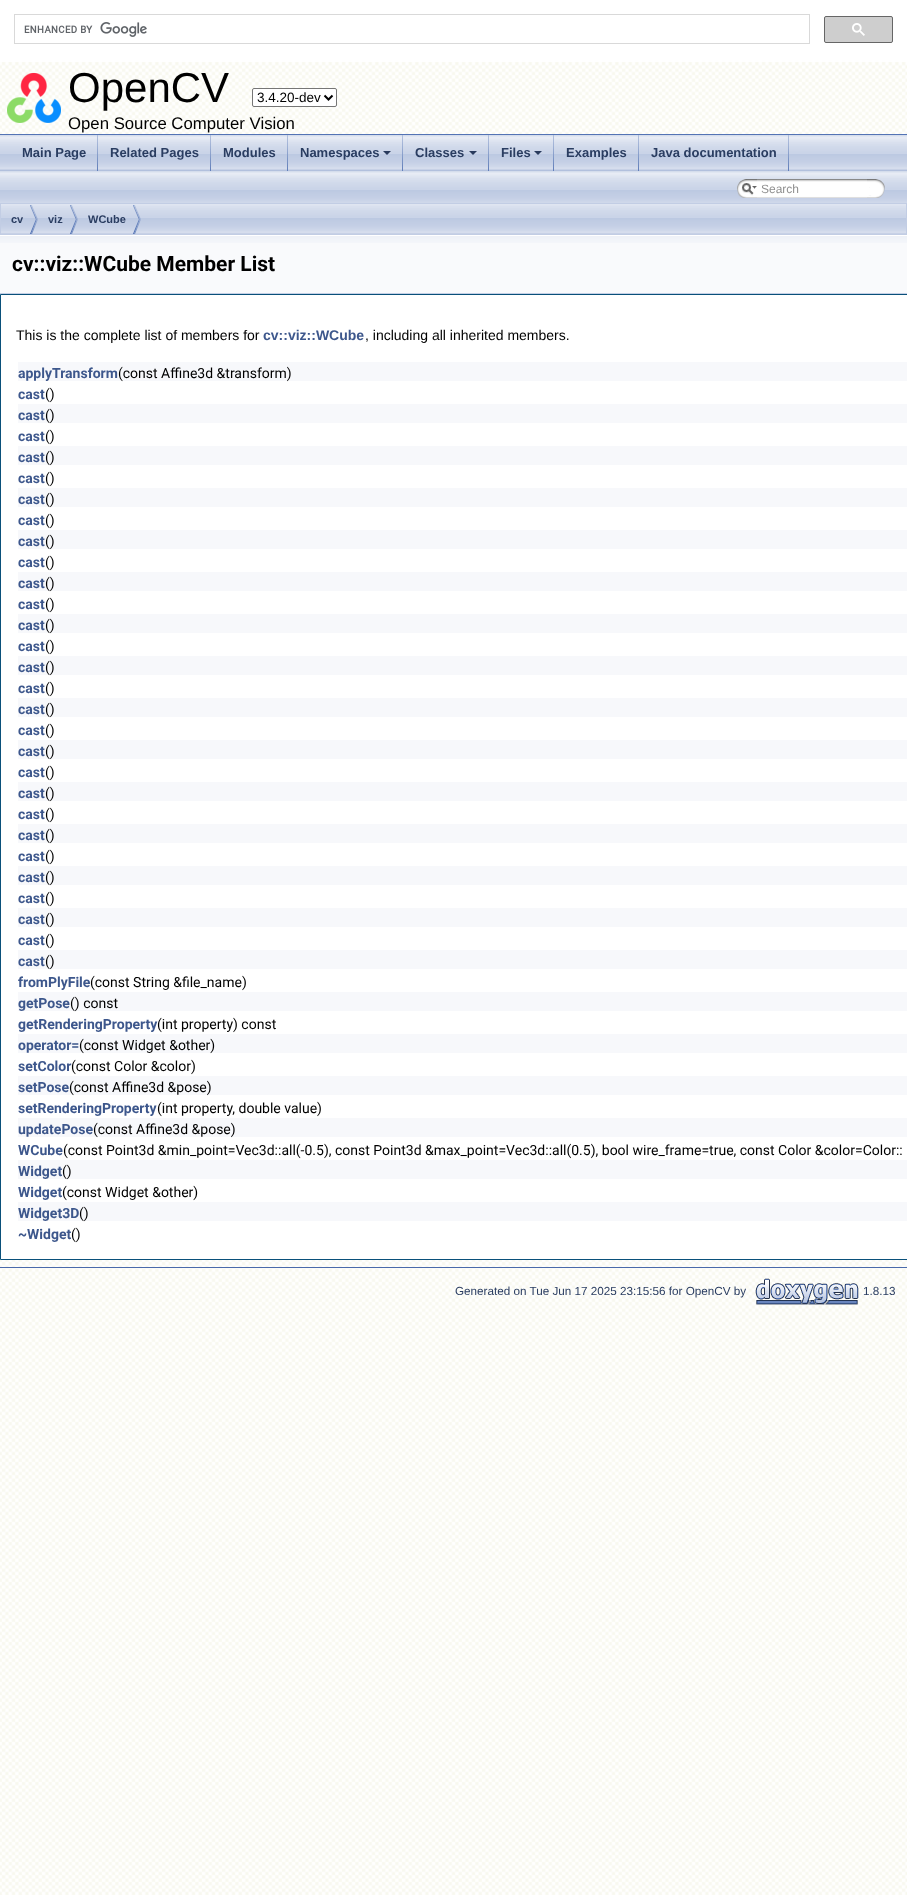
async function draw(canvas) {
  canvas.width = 907;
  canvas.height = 1895;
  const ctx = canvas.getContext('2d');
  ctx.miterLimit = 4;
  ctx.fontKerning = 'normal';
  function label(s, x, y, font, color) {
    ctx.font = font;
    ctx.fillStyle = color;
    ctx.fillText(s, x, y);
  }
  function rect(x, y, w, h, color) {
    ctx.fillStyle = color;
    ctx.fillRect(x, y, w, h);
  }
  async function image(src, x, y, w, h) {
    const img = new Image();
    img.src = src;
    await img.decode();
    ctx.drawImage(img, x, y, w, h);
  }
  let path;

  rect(0, 0, 907, 1895, '#fff');
  await image('assets/img1.png', 0, 62, 907, 1833);
  rect(0, 134, 907, 1, '#5373b4');
  ctx.strokeStyle = '#d9d9d9';
  ctx.strokeRect(14.5, 14.5, 795, 29);
  await image('assets/img2.png', 24, 22, 123, 15);
  ctx.fillStyle = '#cecece';
  ctx.beginPath();
  ctx.roundRect(824.5, 16.5, 68, 26, 1.5);
  ctx.fill();
  ctx.strokeStyle = '#666';
  ctx.stroke();
  await image('assets/img3.png', 852, 23, 13, 13);
  await image('assets/img4.png', 7, 73, 54, 50);
  label('OpenCV', 68, 102, '42px Liberation Sans', '#000');
  ctx.fillStyle = '#fff';
  ctx.beginPath();
  ctx.roundRect(252.5, 88.5, 84, 18, 1.5);
  ctx.fill();
  ctx.strokeStyle = '#767676';
  ctx.stroke();
  path = new Path2D('M324.5 95.5L328.5 99.5L332.5 95.5');
  ctx.strokeStyle = '#000';
  ctx.lineWidth = 2;
  ctx.stroke(path);
  label('3.4.20-dev', 257, 102, '13.5px Liberation Sans', '#000');
  label('Open Source Computer Vision', 68, 129, '16.75px Liberation Sans', '#000');
  await image('assets/img5.png', 0, 135, 907, 68);
  await image('assets/img6.png', 97, 135, 1, 36);
  label('Main Page', 22, 157, 'bold 13px Liberation Sans', '#2a3d61');
  await image('assets/img6.png', 210, 135, 1, 36);
  label('Related Pages', 110, 157, 'bold 13px Liberation Sans', '#2a3d61');
  await image('assets/img6.png', 287, 135, 1, 36);
  label('Modules', 223, 157, 'bold 13px Liberation Sans', '#2a3d61');
  await image('assets/img6.png', 402, 135, 1, 36);
  label('Namespaces', 300, 157, 'bold 13px Liberation Sans', '#2a3d61');
  ctx.fillStyle = '#283a5d';
  path = new Path2D('M383 151H391L387 155Z');
  ctx.fill(path);
  await image('assets/img6.png', 488, 135, 1, 36);
  label('Classes', 415, 157, 'bold 13px Liberation Sans', '#2a3d61');
  ctx.fillStyle = '#283a5d';
  path = new Path2D('M469 151H477L473 155Z');
  ctx.fill(path);
  await image('assets/img6.png', 553, 135, 1, 36);
  label('Files', 501, 157, 'bold 13px Liberation Sans', '#2a3d61');
  ctx.fillStyle = '#283a5d';
  path = new Path2D('M534 151H542L538 155Z');
  ctx.fill(path);
  await image('assets/img6.png', 638, 135, 1, 36);
  label('Examples', 566, 157, 'bold 13px Liberation Sans', '#2a3d61');
  await image('assets/img6.png', 788, 135, 1, 36);
  label('Java documentation', 651, 157, 'bold 13px Liberation Sans', '#2a3d61');
  await image('assets/img7.png', 737, 179, 20, 19);
  await image('assets/img8.png', 742, 183, 15, 12);
  await image('assets/img9.png', 757, 179, 110, 19);
  label('Search', 761, 193, '12px Liberation Sans', '#909090');
  await image('assets/img10.png', 867, 179, 18, 19);
  await image('assets/img11.png', 1, 204, 905, 30);
  ctx.strokeStyle = '#c2cde4';
  ctx.lineWidth = 1;
  ctx.strokeRect(0.5, 203.5, 906, 31);
  await image('assets/img12.png', 30, 205, 8, 29);
  label('cv', 11, 223, 'bold 11px Liberation Sans', '#2a3d61');
  await image('assets/img12.png', 70, 205, 8, 29);
  label('viz', 48, 223, 'bold 11px Liberation Sans', '#2a3d61');
  await image('assets/img12.png', 133, 205, 8, 29);
  label('WCube', 88, 223, 'bold 11px Liberation Sans', '#2a3d61');
  rect(0, 243, 907, 50, '#f9fafc');
  await image('assets/img13.png', 0, 235, 907, 8);
  rect(0, 293, 907, 1, '#c4cfe5');
  label('cv::viz::WCube Member List', 12, 271, 'bold 21px Roboto', '#000');
  ctx.fillStyle = '#fff';
  ctx.beginPath();
  ctx.rect(0.5, 294.5, 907, 965);
  ctx.fill();
  ctx.strokeStyle = '#0a507a';
  ctx.stroke();
  label('This is the complete list of members for', 16, 340, '14px Liberation Sans', '#000');
  label('cv::viz::WCube', 263, 340, 'bold 14px Liberation Sans', '#3d578c');
  label(', including all inherited members.', 365, 340, '14px Liberation Sans', '#000');
  rect(18, 362, 889, 19, '#f7f8fb');
  label('applyTransform', 18, 378, 'bold 14px Roboto', '#3d578c');
  label('(const Affine3d &transform)', 118, 378, '14px Roboto', '#000');
  label('cast', 18, 399, 'bold 14px Roboto', '#3d578c');
  label('()', 45, 399, '14px Roboto', '#000');
  rect(18, 404, 889, 19, '#f7f8fb');
  label('cast', 18, 420, 'bold 14px Roboto', '#3d578c');
  label('()', 45, 420, '14px Roboto', '#000');
  label('cast', 18, 441, 'bold 14px Roboto', '#3d578c');
  label('()', 45, 441, '14px Roboto', '#000');
  rect(18, 446, 889, 19, '#f7f8fb');
  label('cast', 18, 462, 'bold 14px Roboto', '#3d578c');
  label('()', 45, 462, '14px Roboto', '#000');
  label('cast', 18, 483, 'bold 14px Roboto', '#3d578c');
  label('()', 45, 483, '14px Roboto', '#000');
  rect(18, 488, 889, 19, '#f7f8fb');
  label('cast', 18, 504, 'bold 14px Roboto', '#3d578c');
  label('()', 45, 504, '14px Roboto', '#000');
  label('cast', 18, 525, 'bold 14px Roboto', '#3d578c');
  label('()', 45, 525, '14px Roboto', '#000');
  rect(18, 530, 889, 19, '#f7f8fb');
  label('cast', 18, 546, 'bold 14px Roboto', '#3d578c');
  label('()', 45, 546, '14px Roboto', '#000');
  label('cast', 18, 567, 'bold 14px Roboto', '#3d578c');
  label('()', 45, 567, '14px Roboto', '#000');
  rect(18, 572, 889, 19, '#f7f8fb');
  label('cast', 18, 588, 'bold 14px Roboto', '#3d578c');
  label('()', 45, 588, '14px Roboto', '#000');
  label('cast', 18, 609, 'bold 14px Roboto', '#3d578c');
  label('()', 45, 609, '14px Roboto', '#000');
  rect(18, 614, 889, 19, '#f7f8fb');
  label('cast', 18, 630, 'bold 14px Roboto', '#3d578c');
  label('()', 45, 630, '14px Roboto', '#000');
  label('cast', 18, 651, 'bold 14px Roboto', '#3d578c');
  label('()', 45, 651, '14px Roboto', '#000');
  rect(18, 656, 889, 19, '#f7f8fb');
  label('cast', 18, 672, 'bold 14px Roboto', '#3d578c');
  label('()', 45, 672, '14px Roboto', '#000');
  label('cast', 18, 693, 'bold 14px Roboto', '#3d578c');
  label('()', 45, 693, '14px Roboto', '#000');
  rect(18, 698, 889, 19, '#f7f8fb');
  label('cast', 18, 714, 'bold 14px Roboto', '#3d578c');
  label('()', 45, 714, '14px Roboto', '#000');
  label('cast', 18, 735, 'bold 14px Roboto', '#3d578c');
  label('()', 45, 735, '14px Roboto', '#000');
  rect(18, 740, 889, 19, '#f7f8fb');
  label('cast', 18, 756, 'bold 14px Roboto', '#3d578c');
  label('()', 45, 756, '14px Roboto', '#000');
  label('cast', 18, 777, 'bold 14px Roboto', '#3d578c');
  label('()', 45, 777, '14px Roboto', '#000');
  rect(18, 782, 889, 19, '#f7f8fb');
  label('cast', 18, 798, 'bold 14px Roboto', '#3d578c');
  label('()', 45, 798, '14px Roboto', '#000');
  label('cast', 18, 819, 'bold 14px Roboto', '#3d578c');
  label('()', 45, 819, '14px Roboto', '#000');
  rect(18, 824, 889, 19, '#f7f8fb');
  label('cast', 18, 840, 'bold 14px Roboto', '#3d578c');
  label('()', 45, 840, '14px Roboto', '#000');
  label('cast', 18, 861, 'bold 14px Roboto', '#3d578c');
  label('()', 45, 861, '14px Roboto', '#000');
  rect(18, 866, 889, 19, '#f7f8fb');
  label('cast', 18, 882, 'bold 14px Roboto', '#3d578c');
  label('()', 45, 882, '14px Roboto', '#000');
  label('cast', 18, 903, 'bold 14px Roboto', '#3d578c');
  label('()', 45, 903, '14px Roboto', '#000');
  rect(18, 908, 889, 19, '#f7f8fb');
  label('cast', 18, 924, 'bold 14px Roboto', '#3d578c');
  label('()', 45, 924, '14px Roboto', '#000');
  label('cast', 18, 945, 'bold 14px Roboto', '#3d578c');
  label('()', 45, 945, '14px Roboto', '#000');
  rect(18, 950, 889, 19, '#f7f8fb');
  label('cast', 18, 966, 'bold 14px Roboto', '#3d578c');
  label('()', 45, 966, '14px Roboto', '#000');
  label('fromPlyFile', 18, 987, 'bold 14px Roboto', '#3d578c');
  label('(const String &file_name)', 90, 987, '14px Roboto', '#000');
  rect(18, 992, 889, 19, '#f7f8fb');
  label('getPose', 18, 1008, 'bold 14px Roboto', '#3d578c');
  label('() const', 70, 1008, '14px Roboto', '#000');
  label('getRenderingProperty', 18, 1029, 'bold 14px Roboto', '#3d578c');
  label('(int property) const', 157, 1029, '14px Roboto', '#000');
  rect(18, 1034, 889, 19, '#f7f8fb');
  label('operator=', 18, 1050, 'bold 14px Roboto', '#3d578c');
  label('(const Widget &other)', 79, 1050, '14px Roboto', '#000');
  label('setColor', 18, 1071, 'bold 14px Roboto', '#3d578c');
  label('(const Color &color)', 71, 1071, '14px Roboto', '#000');
  rect(18, 1076, 889, 19, '#f7f8fb');
  label('setPose', 18, 1092, 'bold 14px Roboto', '#3d578c');
  label('(const Affine3d &pose)', 69, 1092, '14px Roboto', '#000');
  label('setRenderingProperty', 18, 1113, 'bold 14px Roboto', '#3d578c');
  label('(int property, double value)', 157, 1113, '14px Roboto', '#000');
  rect(18, 1118, 889, 19, '#f7f8fb');
  label('updatePose', 18, 1134, 'bold 14px Roboto', '#3d578c');
  label('(const Affine3d &pose)', 93, 1134, '14px Roboto', '#000');
  label('WCube', 18, 1155, 'bold 14px Roboto', '#3d578c');
  label('(const Point3d &min_point=Vec3d::all(-0.5), const Point3d &max_point=Vec3d::all(0.5), bool wire_frame=true, const Color &color=Color::', 63, 1155, '14px Roboto', '#000');
  rect(18, 1160, 889, 19, '#f7f8fb');
  label('Widget', 18, 1176, 'bold 14px Roboto', '#3d578c');
  label('()', 62, 1176, '14px Roboto', '#000');
  label('Widget', 18, 1197, 'bold 14px Roboto', '#3d578c');
  label('(const Widget &other)', 62, 1197, '14px Roboto', '#000');
  rect(18, 1202, 889, 19, '#f7f8fb');
  label('Widget3D', 18, 1218, 'bold 14px Roboto', '#3d578c');
  label('()', 79, 1218, '14px Roboto', '#000');
  label('~Widget', 18, 1239, 'bold 14px Roboto', '#3d578c');
  label('()', 71, 1239, '14px Roboto', '#000');
  rect(0, 1267, 907, 1, '#4a6aaa');
  label('Generated on Tue Jun 17 2025 23:15:56 for OpenCV by', 455, 1295, '11.7px Liberation Sans', '#2a3d61');
  await image('assets/img14.png', 755, 1278, 104, 27);
  label('1.8.13', 863, 1295, '11.7px Liberation Sans', '#2a3d61');
}

draw(document.querySelector('canvas'));
